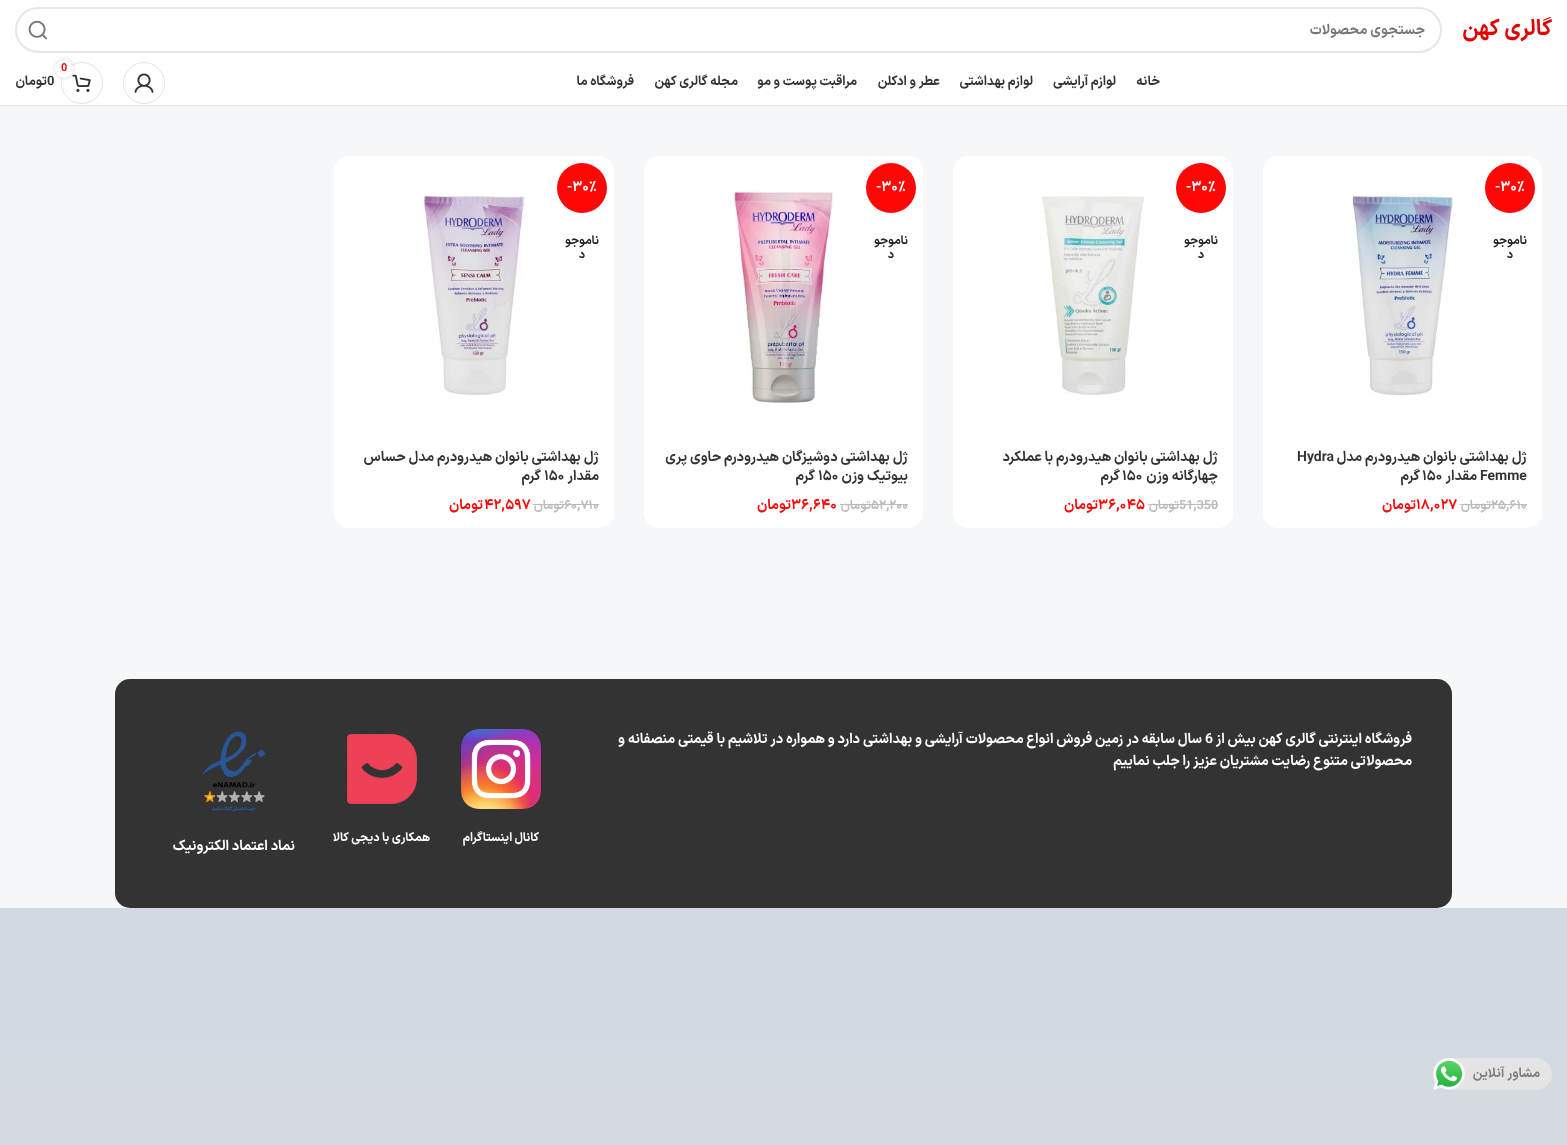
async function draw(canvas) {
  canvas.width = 1567;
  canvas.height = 1145;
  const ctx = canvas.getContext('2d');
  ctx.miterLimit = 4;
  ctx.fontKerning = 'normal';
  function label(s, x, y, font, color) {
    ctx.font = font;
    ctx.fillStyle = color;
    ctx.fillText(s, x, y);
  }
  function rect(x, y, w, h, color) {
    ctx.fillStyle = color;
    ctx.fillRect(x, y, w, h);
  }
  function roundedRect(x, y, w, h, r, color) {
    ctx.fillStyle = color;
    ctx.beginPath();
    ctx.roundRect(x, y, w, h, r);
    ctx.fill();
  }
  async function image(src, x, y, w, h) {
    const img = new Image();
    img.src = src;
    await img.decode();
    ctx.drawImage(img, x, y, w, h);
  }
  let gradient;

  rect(0, 0, 1567, 1145, '#fff');
  gradient = ctx.createLinearGradient(784, 908, 784, 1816);
  gradient.addColorStop(0.14, '#d3d9e0');
  gradient.addColorStop(1, '#e8eaed');
  ctx.fillStyle = gradient;
  ctx.fillRect(0, 908, 1567, 237);
  ctx.direction = 'rtl';
  label('گالری کهن', 1552, 35, 'bold 22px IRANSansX', '#e30000');
  ctx.beginPath();
  ctx.roundRect(16, 8, 1425, 44, 22);
  ctx.strokeStyle = '#e6e6e6';
  ctx.lineWidth = 2;
  ctx.stroke();
  label('جستجوی محصولات', 1425, 34, 'bold 14px IRANSansX', '#767676');
  await image('assets/img1.png', 28, 20, 19, 20);
  rect(0, 105, 1567, 1, '#e6e6e6');
  label('خانه', 1160, 85, 'bold 13px IRANSansX', '#333');
  label('لوازم آرایشی', 1116, 85, 'bold 13px IRANSansX', '#333');
  label('لوازم بهداشتی', 1033, 85, 'bold 13px IRANSansX', '#333');
  label('عطر و ادکلن', 940, 85, 'bold 13px IRANSansX', '#333');
  label('مراقبت پوست و مو', 857, 85, 'bold 13px IRANSansX', '#333');
  label('مجله گالری کهن', 738, 85, 'bold 13px IRANSansX', '#333');
  label('فروشگاه ما', 634, 85, 'bold 13px IRANSansX', '#333');
  ctx.beginPath();
  ctx.arc(144, 83, 20.5, 0, 2 * Math.PI);
  ctx.strokeStyle = '#e4e4e4';
  ctx.lineWidth = 1;
  ctx.stroke();
  await image('assets/img2.png', 134, 73, 20, 20);
  ctx.beginPath();
  ctx.arc(82, 83, 20.5, 0, 2 * Math.PI);
  ctx.stroke();
  await image('assets/img3.png', 72, 74, 19, 18);
  ctx.fillStyle = '#0000002b';
  ctx.filter = 'blur(2px)';
  ctx.beginPath();
  ctx.roundRect(55, 60, 18, 18, 9);
  ctx.fill();
  ctx.filter = 'none';
  ctx.fillStyle = '#fff';
  ctx.beginPath();
  ctx.arc(64, 69, 9, 0, 2 * Math.PI);
  ctx.fill();
  ctx.direction = 'ltr';
  label('0', 61, 71, 'bold 11px IRANSansX', '#ff0707');
  label('0', 47, 85, 'bold 13px IRANSansX', '#333');
  ctx.direction = 'rtl';
  label('تومان', 47, 85, 'bold 13px IRANSansX', '#333');
  rect(0, 106, 1567, 802, '#f5f7f8');
  roundedRect(1263, 156, 279, 372, 15, '#fff');
  ctx.fillStyle = '#ff0707';
  ctx.beginPath();
  ctx.arc(1510, 188, 25, 0, 2 * Math.PI);
  ctx.fill();
  ctx.direction = 'ltr';
  label('-30%', 1495, 191, 'bold 14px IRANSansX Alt', '#fff');
  ctx.direction = 'rtl';
  label('ناموجو', 1527, 244, 'bold 12px IRANSansX', '#242424');
  label('د', 1513, 258, 'bold 12px IRANSansX', '#242424');
  await image('assets/img4.png', 1352, 195, 102, 200);
  label('ژل بهداشتی بانوان هیدرودرم مدل', 1527, 461, 'bold 14px IRANSansX', '#333');
  ctx.direction = 'ltr';
  label('Hydra', 1297, 461, 'bold 14px IRANSansX', '#333');
  label('Femme', 1480, 480, 'bold 14px IRANSansX', '#333');
  ctx.direction = 'rtl';
  label('مقدار', 1477, 480, 'bold 14px IRANSansX', '#333');
  ctx.direction = 'ltr';
  label('150', 1422, 480, 'bold 14px IRANSansX Alt', '#333');
  ctx.direction = 'rtl';
  label('گرم', 1420, 480, 'bold 14px IRANSansX', '#333');
  ctx.direction = 'ltr';
  label('25,610', 1491, 509, 'bold 12.5px IRANSansX Alt', '#bbb');
  rect(1491, 504, 36, 1, '#bbb');
  rect(1460, 504, 31, 1, '#bbb');
  ctx.direction = 'rtl';
  label('تومان', 1491, 509, 'bold 12.5px IRANSansX', '#bbb');
  ctx.direction = 'ltr';
  label('18,027', 1416, 509, 'bold 14px IRANSansX Alt', '#ff0707');
  ctx.direction = 'rtl';
  label('تومان', 1416, 509, 'bold 14px IRANSansX', '#ff0707');
  roundedRect(953, 156, 280, 372, 15, '#fff');
  ctx.fillStyle = '#ff0707';
  ctx.beginPath();
  ctx.arc(1201, 188, 25, 0, 2 * Math.PI);
  ctx.fill();
  ctx.direction = 'ltr';
  label('-30%', 1186, 191, 'bold 14px IRANSansX Alt', '#fff');
  ctx.direction = 'rtl';
  label('ناموجو', 1218, 244, 'bold 12px IRANSansX', '#242424');
  label('د', 1204, 258, 'bold 12px IRANSansX', '#242424');
  await image('assets/img5.png', 1042, 196, 102, 199);
  label('ژل بهداشتی بانوان هیدرودرم با عملکرد', 1218, 461, 'bold 14px IRANSansX', '#333');
  label('چهارگانه وزن', 1218, 480, 'bold 14px IRANSansX', '#333');
  ctx.direction = 'ltr';
  label('150', 1122, 480, 'bold 14px IRANSansX Alt', '#333');
  ctx.direction = 'rtl';
  label('گرم', 1120, 480, 'bold 14px IRANSansX', '#333');
  ctx.direction = 'ltr';
  label('51,350', 1179, 509, 'bold 12.5px IRANSansX', '#bbb');
  rect(1179, 504, 39, 1, '#bbb');
  rect(1148, 504, 31, 1, '#bbb');
  ctx.direction = 'rtl';
  label('تومان', 1179, 509, 'bold 12.5px IRANSansX', '#bbb');
  ctx.direction = 'ltr';
  label('36,045', 1098, 509, 'bold 14px IRANSansX Alt', '#ff0707');
  ctx.direction = 'rtl';
  label('تومان', 1098, 509, 'bold 14px IRANSansX', '#ff0707');
  roundedRect(644, 156, 279, 372, 15, '#fff');
  ctx.fillStyle = '#ff0707';
  ctx.beginPath();
  ctx.arc(891, 188, 25, 0, 2 * Math.PI);
  ctx.fill();
  ctx.direction = 'ltr';
  label('-30%', 876, 191, 'bold 14px IRANSansX Alt', '#fff');
  ctx.direction = 'rtl';
  label('ناموجو', 908, 244, 'bold 12px IRANSansX', '#242424');
  label('د', 894, 258, 'bold 12px IRANSansX', '#242424');
  await image('assets/img6.png', 732, 191, 102, 212);
  label('ژل بهداشتی دوشیزگان هیدرودرم حاوی پری', 908, 461, 'bold 14px IRANSansX', '#333');
  label('بیوتیک وزن', 908, 480, 'bold 14px IRANSansX', '#333');
  ctx.direction = 'ltr';
  label('150', 818, 480, 'bold 14px IRANSansX Alt', '#333');
  ctx.direction = 'rtl';
  label('گرم', 815, 480, 'bold 14px IRANSansX', '#333');
  ctx.direction = 'ltr';
  label('52,200', 871, 509, 'bold 12.5px IRANSansX Alt', '#bbb');
  rect(871, 504, 37, 1, '#bbb');
  rect(840, 504, 31, 1, '#bbb');
  ctx.direction = 'rtl';
  label('تومان', 871, 509, 'bold 12.5px IRANSansX', '#bbb');
  ctx.direction = 'ltr';
  label('36,640', 791, 509, 'bold 14px IRANSansX Alt', '#ff0707');
  ctx.direction = 'rtl';
  label('تومان', 791, 509, 'bold 14px IRANSansX', '#ff0707');
  roundedRect(334, 156, 280, 372, 15, '#fff');
  ctx.fillStyle = '#ff0707';
  ctx.beginPath();
  ctx.arc(582, 188, 25, 0, 2 * Math.PI);
  ctx.fill();
  ctx.direction = 'ltr';
  label('-30%', 567, 191, 'bold 14px IRANSansX Alt', '#fff');
  ctx.direction = 'rtl';
  label('ناموجو', 599, 244, 'bold 12px IRANSansX', '#242424');
  label('د', 585, 258, 'bold 12px IRANSansX', '#242424');
  await image('assets/img7.png', 423, 196, 102, 199);
  label('ژل بهداشتی بانوان هیدرودرم مدل حساس', 599, 461, 'bold 14px IRANSansX', '#333');
  label('مقدار', 599, 480, 'bold 14px IRANSansX', '#333');
  ctx.direction = 'ltr';
  label('150', 544, 480, 'bold 14px IRANSansX Alt', '#333');
  ctx.direction = 'rtl';
  label('گرم', 541, 480, 'bold 14px IRANSansX', '#333');
  ctx.direction = 'ltr';
  label('60,710', 564, 509, 'bold 12.5px IRANSansX Alt', '#bbb');
  rect(564, 504, 35, 1, '#bbb');
  rect(533, 504, 31, 1, '#bbb');
  ctx.direction = 'rtl';
  label('تومان', 564, 509, 'bold 12.5px IRANSansX', '#bbb');
  ctx.direction = 'ltr';
  label('42,597', 484, 509, 'bold 14px IRANSansX Alt', '#ff0707');
  ctx.direction = 'rtl';
  label('تومان', 483, 509, 'bold 14px IRANSansX', '#ff0707');
  roundedRect(115, 679, 1337, 229, 15, '#333');
  label('فروشگاه اینترنتی گالری کهن بیش از', 1412, 743, 'bold 14px IRANSansX', '#fff');
  ctx.direction = 'ltr';
  label('6', 1205, 743, 'bold 14px IRANSansX', '#fff');
  ctx.direction = 'rtl';
  label('سال سابقه در زمین فروش انواع محصولات آرایشی و بهداشتی دارد و همواره در تلاشیم با قیمتی منصفانه و', 1202, 743, 'bold 14px IRANSansX', '#fff');
  label('محصولاتی متنوع رضایت مشتریان عزیز را جلب نماییم', 1412, 765, 'bold 14px IRANSansX', '#fff');
  await image('assets/img8.png', 461, 729, 80, 80);
  label('کانال اینستاگرام', 539, 841, 'bold 12px IRANSansX', '#fff');
  await image('assets/img9.png', 347, 734, 70, 70);
  label('همکاری با دیجی کالا', 430, 841, 'bold 12px IRANSansX', '#fff');
  await image('assets/img10.png', 202, 731, 64, 81);
  label('نماد اعتماد الکترونیک', 295, 850, 'bold 14px IRANSansX', '#fff');
  roundedRect(1433, 1058, 119, 32, 16, '#e4e4e4');
  label('مشاور آنلاین', 1540, 1077, 'bold 13px IRANSansX', '#7f7d7d');
  await image('assets/img11.png', 1433, 1058, 32, 32);
}

draw(document.querySelector('canvas'));
